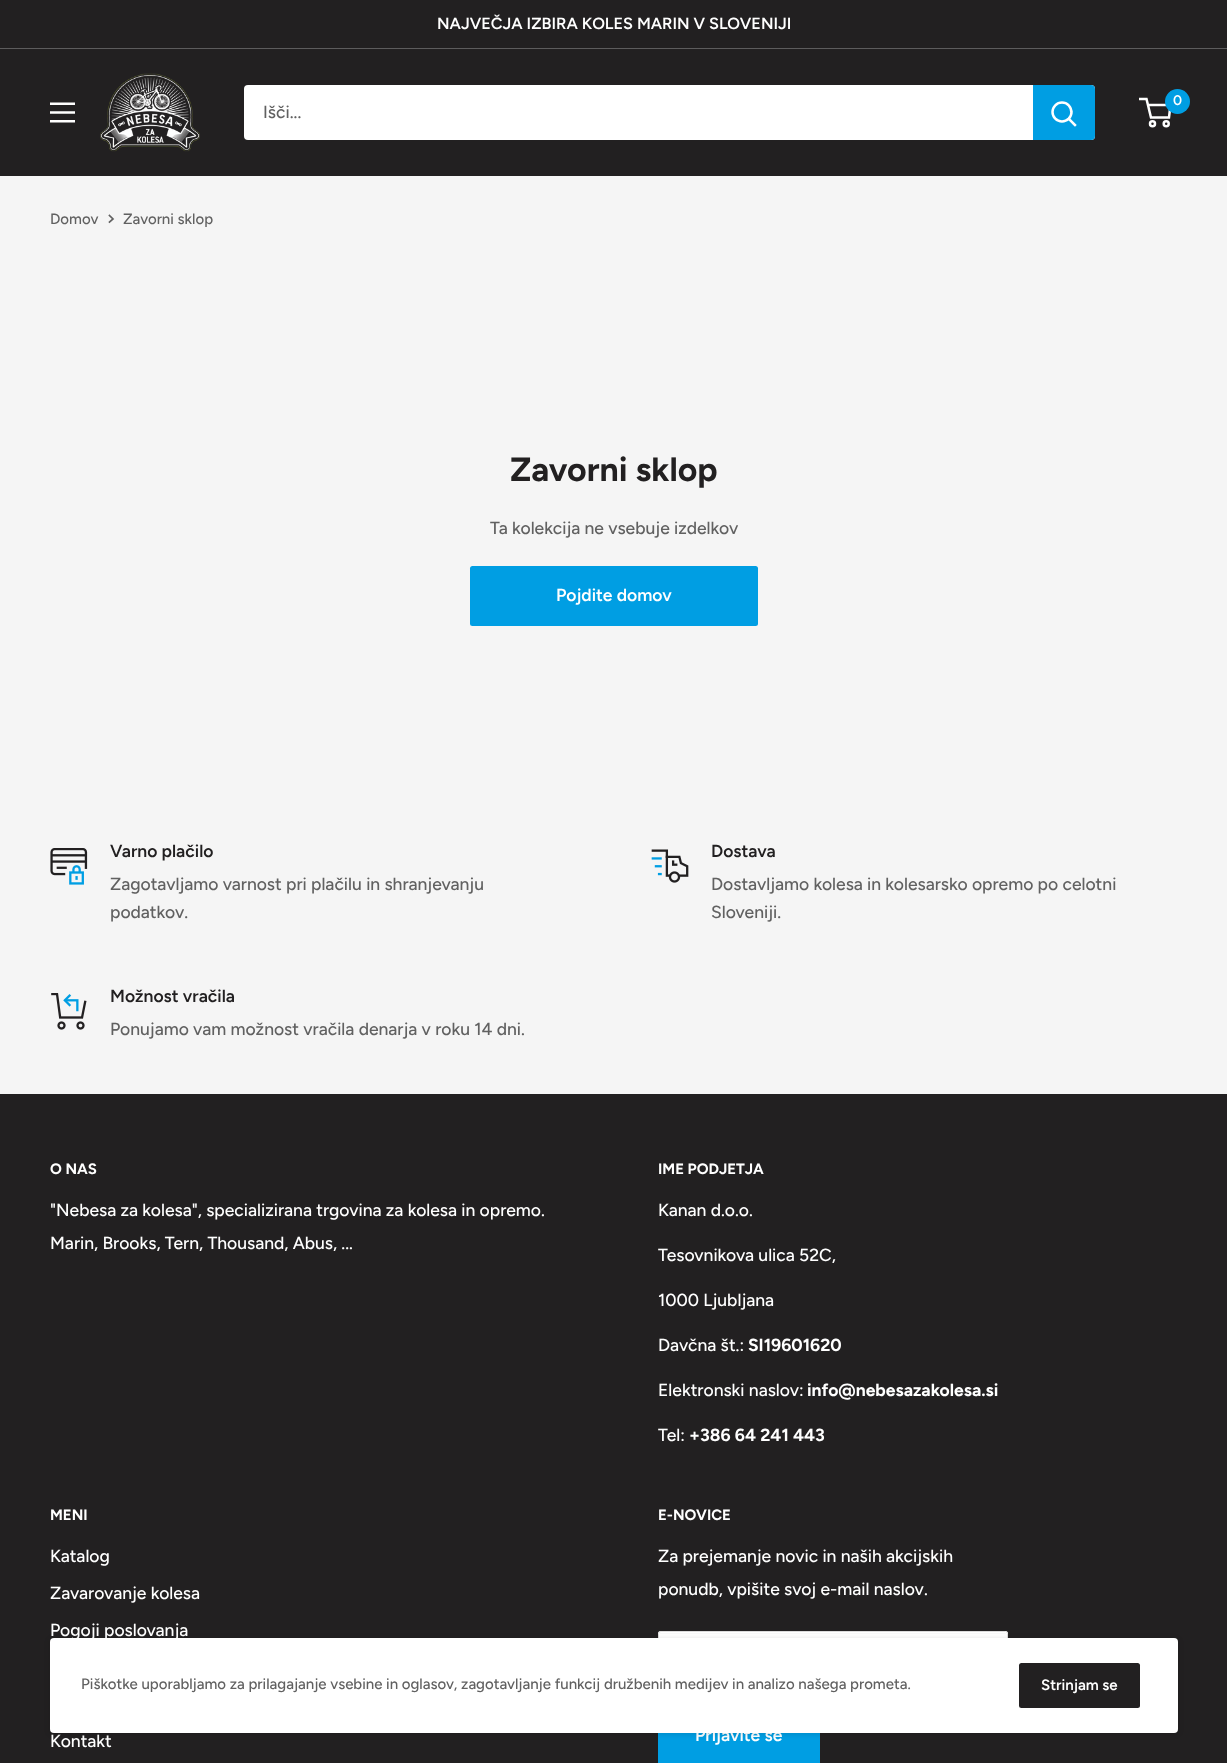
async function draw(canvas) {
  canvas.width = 1227;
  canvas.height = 1763;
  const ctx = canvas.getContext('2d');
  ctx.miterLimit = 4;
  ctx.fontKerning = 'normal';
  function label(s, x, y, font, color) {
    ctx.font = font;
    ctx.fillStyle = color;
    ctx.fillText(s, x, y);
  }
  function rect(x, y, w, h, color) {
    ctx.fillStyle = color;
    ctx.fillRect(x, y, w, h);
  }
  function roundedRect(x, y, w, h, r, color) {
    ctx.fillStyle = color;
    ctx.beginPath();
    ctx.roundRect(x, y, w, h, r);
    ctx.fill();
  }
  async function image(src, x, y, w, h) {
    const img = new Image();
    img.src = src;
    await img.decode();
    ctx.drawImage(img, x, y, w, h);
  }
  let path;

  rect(0, 0, 1227, 1763, '#f5f5f5');
  rect(0, 0, 1227, 48, '#222021');
  rect(0, 48, 1227, 1, '#5d5c5d');
  label('NAJVEČJA IZBIRA KOLES MARIN V SLOVENIJI', 437, 29, '600 16.25px Figtree', '#fff');
  rect(0, 49, 1227, 127, '#222021');
  await image('assets/img1.png', 100, 73, 100, 79);
  ctx.beginPath();
  ctx.arc(1152.5, 123.8, 2.5, 0, 2 * Math.PI);
  ctx.strokeStyle = '#fff';
  ctx.lineWidth = 2.5;
  ctx.stroke();
  ctx.beginPath();
  ctx.arc(1166.2, 123.8, 2.5, 0, 2 * Math.PI);
  ctx.stroke();
  path = new Path2D('M1148 105H1170.5L1169 117.5H1151L1146.5 99H1139');
  ctx.stroke(path);
  ctx.fillStyle = '#009ee3';
  ctx.beginPath();
  ctx.arc(1177.5, 101.5, 12.5, 0, 2 * Math.PI);
  ctx.fill();
  label('0', 1173, 105, '600 14px Figtree', '#fff');
  await image('assets/img2.png', 50, 102, 25, 21);
  roundedRect(244, 85, 851, 55, 4, '#fff');
  label('Išči...', 263, 118, '500 17.5px Figtree', '#616161');
  ctx.fillStyle = '#009ee3';
  ctx.beginPath();
  ctx.roundRect(1033, 85, 62, 55, [0, 4, 4, 0]);
  ctx.fill();
  path = new Path2D('M1075 125L1069 119');
  ctx.lineCap = 'square';
  ctx.stroke(path);
  ctx.beginPath();
  ctx.arc(1062, 112, 9.5, 0, 2 * Math.PI);
  ctx.stroke();
  label('Domov', 50, 224, '500 15px Figtree', '#616161');
  path = new Path2D('M109.5 215.5L113 219L109.5 222');
  ctx.strokeStyle = '#616161';
  ctx.lineWidth = 1.7;
  ctx.stroke(path);
  label('Zavorni sklop', 123, 224, '500 15px Figtree', '#616161');
  label('Zavorni sklop', 510, 481, 'bold 33.75px Figtree', '#222021');
  label('Ta kolekcija ne vsebuje izdelkov', 490, 534, '500 17.5px Figtree', '#616161');
  roundedRect(470, 566, 288, 60, 2.5, '#009ee3');
  label('Pojdite domov', 556, 601, '600 17.5px Figtree', '#fff');
  await image('assets/img3.png', 50, 848, 38, 37);
  label('Varno plačilo', 110, 857, '600 17.5px Figtree', '#222021');
  label('Zagotavljamo varnost pri plačilu in shranjevanju', 110, 890, '500 17.5px Figtree', '#616161');
  label('podatkov.', 110, 918, '500 17.5px Figtree', '#616161');
  await image('assets/img4.png', 651, 849, 38, 34);
  label('Dostava', 711, 857, '600 17.5px Figtree', '#222021');
  label('Dostavljamo kolesa in kolesarsko opremo po celotni', 711, 890, '500 17.5px Figtree', '#616161');
  label('Sloveniji.', 711, 918, '500 17.5px Figtree', '#616161');
  await image('assets/img5.png', 51, 993, 36, 37);
  label('Možnost vračila', 110, 1002, '600 17.5px Figtree', '#222021');
  label('Ponujamo vam možnost vračila denarja v roku 14 dni.', 110, 1035, '500 17.5px Figtree', '#616161');
  rect(0, 1094, 1227, 669, '#222021');
  label('O NAS', 50, 1174, 'bold 15px Figtree', '#fff');
  label('"Nebesa za kolesa", specializirana trgovina za kolesa in opremo.', 50, 1216, '500 17.5px Figtree', '#fff');
  label('Marin, Brooks, Tern, Thousand, Abus, ...', 50, 1249, '500 17.5px Figtree', '#fff');
  label('IME PODJETJA', 658, 1174, 'bold 15px Figtree', '#fff');
  label('Kanan d.o.o.', 658, 1216, '500 17.5px Figtree', '#fff');
  label('Tesovnikova ulica 52C,', 658, 1261, '500 17.5px Figtree', '#fff');
  label('1000 Ljubljana', 658, 1306, '500 17.5px Figtree', '#fff');
  label('Davčna št.:', 658, 1351, '500 17.5px Figtree', '#fff');
  label('SI19601620', 748, 1351, 'bold 17.5px Figtree', '#fff');
  label('Elektronski naslov:', 658, 1396, '500 17.5px Figtree', '#fff');
  label('info@nebesazakolesa.si', 807, 1396, 'bold 17.5px Figtree', '#fff');
  label('Tel:', 658, 1441, '500 17.5px Figtree', '#fff');
  label('+386 64 241 443', 689, 1441, 'bold 17.5px Figtree', '#fff');
  label('MENI', 50, 1520, 'bold 15px Figtree', '#fff');
  label('Katalog', 50, 1562, '500 17.5px Figtree', '#fff');
  label('Zavarovanje kolesa', 50, 1599, '500 17.5px Figtree', '#fff');
  label('Pogoji poslovanja', 50, 1636, '500 17.5px Figtree', '#fff');
  label('Kontakt', 50, 1747, '500 17.5px Figtree', '#fff');
  label('E-NOVICE', 658, 1520, 'bold 15px Figtree', '#fff');
  label('Za prejemanje novic in naših akcijskih', 658, 1562, '500 17.5px Figtree', '#fff');
  label('ponudb, vpišite svoj e-mail naslov.', 658, 1595, '500 17.5px Figtree', '#fff');
  roundedRect(658, 1631, 350, 60, 2.5, '#fff');
  ctx.fillStyle = '#f9f9f9';
  path = new Path2D('M660 1634H1005C1006 1634 1006 1634 1006 1635V1633H832H660L659 1634V1635C659 1634 659 1634 660 1634Z');
  ctx.fill(path);
  ctx.beginPath();
  ctx.roundRect(658.5, 1631.5, 349, 59, 2);
  ctx.strokeStyle = '#dbdbdb';
  ctx.lineWidth = 1;
  ctx.stroke();
  rect(658, 1733, 162, 30, '#009ee3');
  label('Prijavite se', 695, 1741, '600 17.5px Figtree', '#fff');
  ctx.fillStyle = '#0000001a';
  ctx.filter = 'blur(2.5px)';
  ctx.beginPath();
  ctx.roundRect(49, 1638, 1130, 97, 5);
  ctx.fill();
  ctx.filter = 'none';
  roundedRect(50, 1638, 1128, 95, 4, '#fff');
  label('Piškotke uporabljamo za prilagajanje vsebine in oglasov, zagotavljanje funkcij družbenih medijev in analizo našega prometa.', 81, 1689, '500 15px Figtree', '#616161');
  roundedRect(1019, 1663, 121, 45, 2.5, '#222021');
  label('Strinjam se', 1041, 1690, '600 15px Figtree', '#fff');
}

draw(document.querySelector('canvas'));
